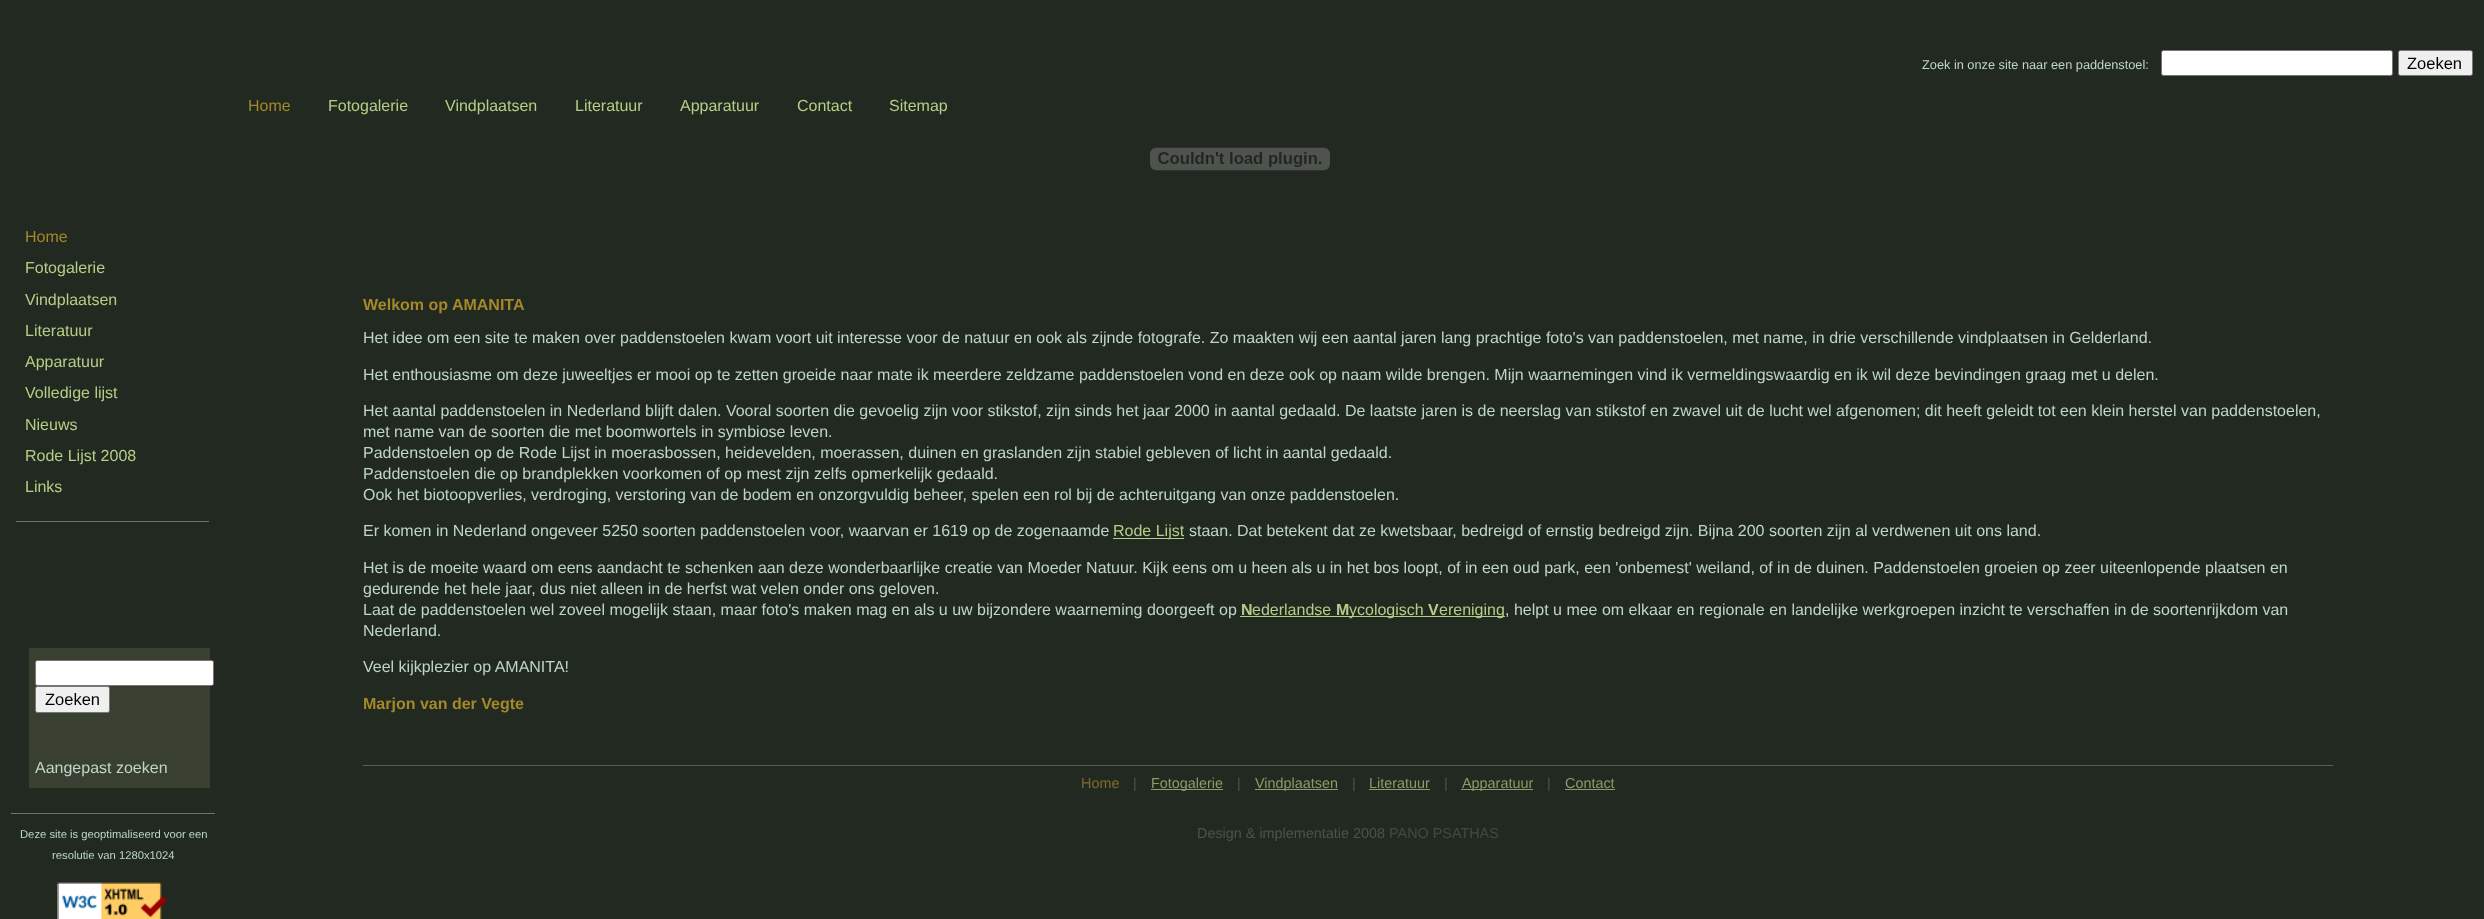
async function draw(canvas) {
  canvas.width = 2484;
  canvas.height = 919;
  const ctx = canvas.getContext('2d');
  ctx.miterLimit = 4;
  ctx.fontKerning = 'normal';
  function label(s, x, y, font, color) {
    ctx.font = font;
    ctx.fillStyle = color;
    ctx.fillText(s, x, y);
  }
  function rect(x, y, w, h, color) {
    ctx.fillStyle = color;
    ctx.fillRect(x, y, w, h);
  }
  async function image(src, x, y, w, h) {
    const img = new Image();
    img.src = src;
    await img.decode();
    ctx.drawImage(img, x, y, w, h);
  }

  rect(0, 0, 2484, 919, '#222921');
  label('Zoek in onze site naar een paddenstoel:', 1922, 69, '12.75px Liberation Sans', '#bed5ca');
  ctx.fillStyle = '#fff';
  ctx.beginPath();
  ctx.roundRect(2161.5, 50.5, 231, 25, 2);
  ctx.fill();
  ctx.strokeStyle = '#767676';
  ctx.stroke();
  ctx.fillStyle = '#efefef';
  ctx.beginPath();
  ctx.roundRect(2398.5, 50.5, 74, 25, 2);
  ctx.fill();
  ctx.stroke();
  label('Zoeken', 2407, 69, '16.5px Liberation Sans', '#000');
  label('Home', 248, 111, '16px Liberation Sans', '#a48829');
  label('Fotogalerie', 328, 111, '16px Liberation Sans', '#b5ce87');
  label('Vindplaatsen', 445, 111, '16px Liberation Sans', '#b5ce87');
  label('Literatuur', 575, 111, '16px Liberation Sans', '#b5ce87');
  label('Apparatuur', 680, 111, '16px Liberation Sans', '#b5ce87');
  label('Contact', 797, 111, '16px Liberation Sans', '#b5ce87');
  label('Sitemap', 889, 111, '16px Liberation Sans', '#b5ce87');
  label('Home', 25, 242, '16px Liberation Sans', '#a48829');
  label('Fotogalerie', 25, 273, '16px Liberation Sans', '#b5ce87');
  label('Vindplaatsen', 25, 305, '16px Liberation Sans', '#b5ce87');
  label('Literatuur', 25, 336, '16px Liberation Sans', '#b5ce87');
  label('Apparatuur', 25, 367, '16px Liberation Sans', '#b5ce87');
  label('Volledige lijst', 25, 398, '16px Liberation Sans', '#b5ce87');
  label('Nieuws', 25, 430, '16px Liberation Sans', '#b5ce87');
  label('Rode Lijst 2008', 25, 461, '16px Liberation Sans', '#b5ce87');
  label('Links', 25, 492, '16px Liberation Sans', '#b5ce87');
  rect(16, 521, 193, 1, '#6c7668');
  rect(29, 648, 181, 140, '#393f31');
  ctx.fillStyle = '#fff';
  ctx.beginPath();
  ctx.roundRect(35.5, 660.5, 178, 25, 2);
  ctx.fill();
  ctx.stroke();
  ctx.fillStyle = '#efefef';
  ctx.beginPath();
  ctx.roundRect(35.5, 686.5, 74, 26, 2);
  ctx.fill();
  ctx.stroke();
  label('Zoeken', 45, 705, '16.5px Liberation Sans', '#000');
  label('Aangepast zoeken', 35, 773, '16px Liberation Sans', '#bed5ca');
  rect(11, 813, 204, 1, '#6c7668');
  label('Deze site is geoptimaliseerd voor een', 20, 838, '11.25px Liberation Sans', '#bed5ca');
  label('resolutie van 1280x1024', 52, 859, '11.25px Liberation Sans', '#bed5ca');
  await image('assets/img1.png', 57, 882, 111, 37);
  await image('assets/img2.png', 1150, 147, 180, 24);
  label('Welkom op AMANITA', 363, 310, 'bold 16px Liberation Sans', '#a48829');
  label('Het idee om een site te maken over paddenstoelen kwam voort uit interesse voor de natuur en ook als zijnde fotografe. Zo maakten wij een aantal jaren lang prachtige foto\'s van paddenstoelen, met name, in drie verschillende vindplaatsen in Gelderland.', 363, 343, '16px Liberation Sans', '#bed5ca');
  label('Het enthousiasme om deze juweeltjes er mooi op te zetten groeide naar mate ik meerdere zeldzame paddenstoelen vond en deze ook op naam wilde brengen. Mijn waarnemingen vind ik vermeldingswaardig en ik wil deze bevindingen graag met u delen.', 363, 380, '16px Liberation Sans', '#bed5ca');
  label('Het aantal paddenstoelen in Nederland blijft dalen. Vooral soorten die gevoelig zijn voor stikstof, zijn sinds het jaar 2000 in aantal gedaald. De laatste jaren is de neerslag van stikstof en zwavel uit de lucht wel afgenomen; dit heeft geleidt tot een klein herstel van paddenstoelen,', 363, 416, '16px Liberation Sans', '#bed5ca');
  label('met name van de soorten die met boomwortels in symbiose leven.', 363, 437, '16px Liberation Sans', '#bed5ca');
  label('Paddenstoelen op de Rode Lijst in moerasbossen, heidevelden, moerassen, duinen en graslanden zijn stabiel gebleven of licht in aantal gedaald.', 363, 458, '16px Liberation Sans', '#bed5ca');
  label('Paddenstoelen die op brandplekken voorkomen of op mest zijn zelfs opmerkelijk gedaald.', 363, 479, '16px Liberation Sans', '#bed5ca');
  label('Ook het biotoopverlies, verdroging, verstoring van de bodem en onzorgvuldig beheer, spelen een rol bij de achteruitgang van onze paddenstoelen.', 363, 500, '16px Liberation Sans', '#bed5ca');
  label('Er komen in Nederland ongeveer 5250 soorten paddenstoelen voor, waarvan er 1619 op de zogenaamde', 363, 536, '16px Liberation Sans', '#bed5ca');
  rect(1113, 538, 71, 1, '#b5ce87');
  label('Rode Lijst', 1113, 536, '16px Liberation Sans', '#b5ce87');
  label('staan. Dat betekent dat ze kwetsbaar, bedreigd of ernstig bedreigd zijn. Bijna 200 soorten zijn al verdwenen uit ons land.', 1189, 536, '16px Liberation Sans', '#bed5ca');
  label('Het is de moeite waard om eens aandacht te schenken aan deze wonderbaarlijke creatie van Moeder Natuur. Kijk eens om u heen als u in het bos loopt, of in een oud park, een \'onbemest\' weiland, of in de duinen. Paddenstoelen groeien op zeer uiteenlopende plaatsen en', 363, 573, '16px Liberation Sans', '#bed5ca');
  label('gedurende het hele jaar, dus niet alleen in de herfst wat velen onder ons geloven.', 363, 594, '16px Liberation Sans', '#bed5ca');
  label('Laat de paddenstoelen wel zoveel mogelijk staan, maar foto\'s maken mag en als u uw bijzondere waarneming doorgeeft op', 363, 615, '16px Liberation Sans', '#bed5ca');
  label('N', 1241, 615, 'bold 16px Liberation Sans', '#b5ce87');
  label('ederlandse', 1252, 615, '16px Liberation Sans', '#b5ce87');
  label('M', 1336, 615, 'bold 16px Liberation Sans', '#b5ce87');
  rect(1240, 616, 265, 1, '#b5ce87');
  label('ycologisch', 1349, 615, '16px Liberation Sans', '#b5ce87');
  label('V', 1428, 615, 'bold 16px Liberation Sans', '#b5ce87');
  label('ereniging', 1439, 615, '16px Liberation Sans', '#b5ce87');
  label(', helpt u mee om elkaar en regionale en landelijke werkgroepen inzicht te verschaffen in de soortenrijkdom van', 1505, 615, '16px Liberation Sans', '#bed5ca');
  label('Nederland.', 363, 636, '16px Liberation Sans', '#bed5ca');
  label('Veel kijkplezier op AMANITA!', 363, 672, '16px Liberation Sans', '#bed5ca');
  label('Marjon van der Vegte', 363, 709, 'bold 16px Liberation Sans', '#a48829');
  rect(363, 765, 1970, 1, '#565f53');
  label('Home', 1081, 788, '14.4px Liberation Sans', '#7d6c27');
  label('|', 1133, 788, '14.4px Liberation Sans', '#4b544b');
  rect(1151, 789, 72, 1, '#899d68');
  label('Fotogalerie', 1151, 788, '14.4px Liberation Sans', '#899d68');
  label('|', 1237, 788, '14.4px Liberation Sans', '#4b544b');
  rect(1255, 789, 83, 1, '#899d68');
  label('Vindplaatsen', 1255, 788, '14.4px Liberation Sans', '#899d68');
  label('|', 1352, 788, '14.4px Liberation Sans', '#4b544b');
  label('Literatuur', 1369, 788, '14.4px Liberation Sans', '#899d68');
  rect(1369, 789, 61, 1, '#899d68');
  label('|', 1444, 788, '14.4px Liberation Sans', '#4b544b');
  rect(1461, 789, 72, 1, '#899d68');
  label('Apparatuur', 1462, 788, '14.4px Liberation Sans', '#899d68');
  label('|', 1547, 788, '14.4px Liberation Sans', '#4b544b');
  label('Contact', 1565, 788, '14.4px Liberation Sans', '#899d68');
  rect(1565, 789, 50, 1, '#899d68');
  label('Design & implementatie 2008', 1197, 838, '14.4px Liberation Sans', '#4b544b');
  label('PANO PSATHAS', 1389, 838, '14.4px Liberation Sans', '#424b43');
}

draw(document.querySelector('canvas'));
